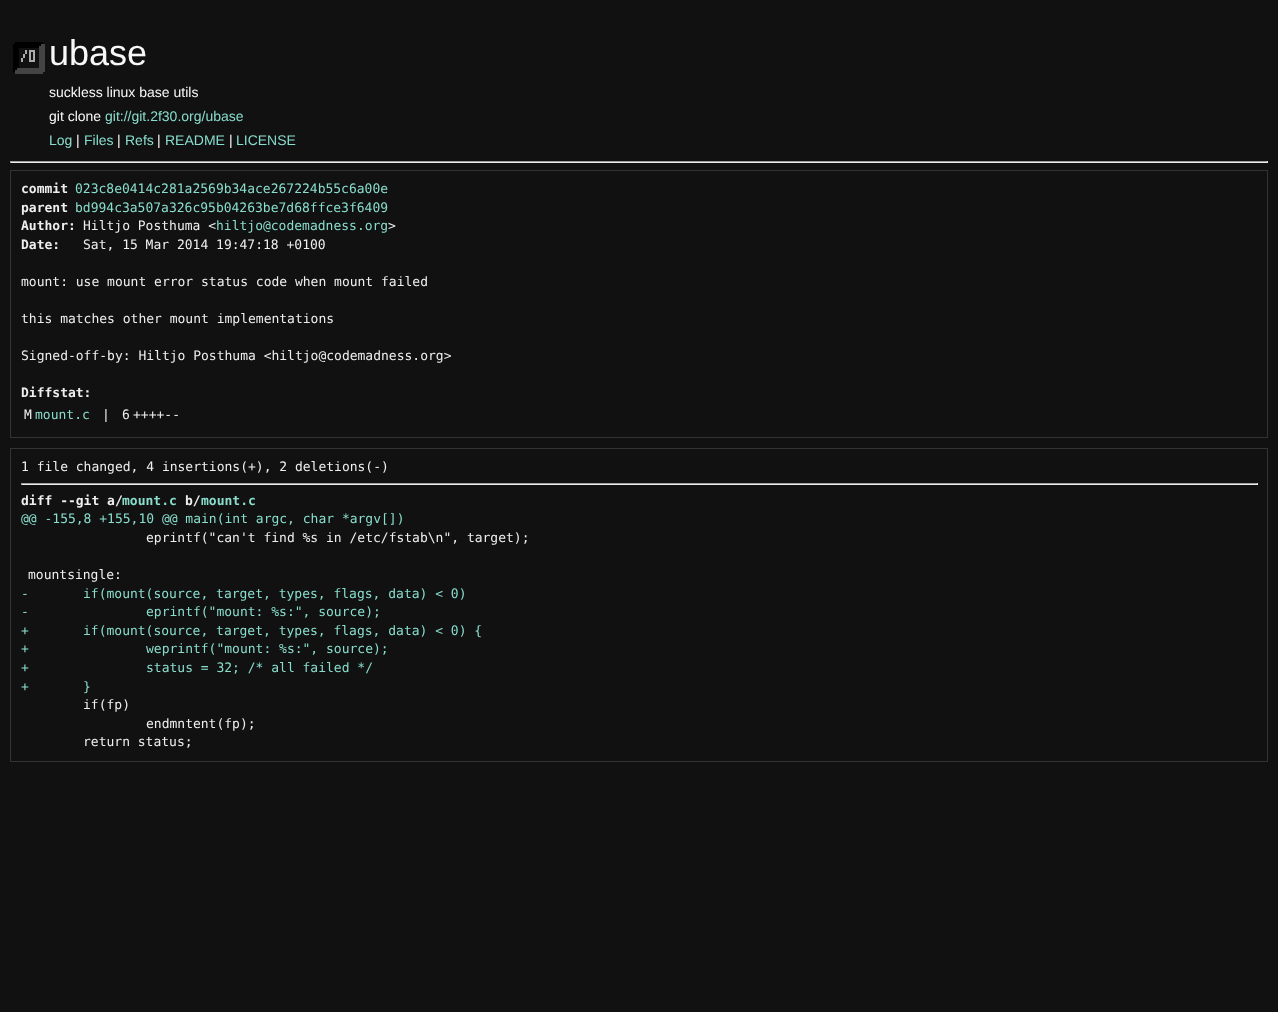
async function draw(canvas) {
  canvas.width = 1278;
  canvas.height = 1012;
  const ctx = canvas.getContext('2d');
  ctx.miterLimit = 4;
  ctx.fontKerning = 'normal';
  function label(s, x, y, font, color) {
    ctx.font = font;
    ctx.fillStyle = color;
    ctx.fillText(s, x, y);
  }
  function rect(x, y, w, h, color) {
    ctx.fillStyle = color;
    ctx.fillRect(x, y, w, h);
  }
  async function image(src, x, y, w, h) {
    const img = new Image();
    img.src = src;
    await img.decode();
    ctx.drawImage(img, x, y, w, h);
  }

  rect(0, 0, 1278, 1012, '#111');
  await image('assets/img1.png', 13, 42, 32, 32);
  label('ubase', 49, 65, '36px Liberation Sans', '#f8f8f8');
  label('suckless linux base utils', 49, 97, '14px Liberation Sans', '#f8f8f8');
  label('git clone', 49, 121, '14px Liberation Sans', '#f8f8f8');
  label('git://git.2f30.org/ubase', 105, 121, '14px Liberation Sans', '#8dc');
  label('Log', 49, 145, '14px Liberation Sans', '#8dc');
  label('|', 76, 145, '14px Liberation Sans', '#f8f8f8');
  label('Files', 84, 145, '14px Liberation Sans', '#8dc');
  label('|', 117, 145, '14px Liberation Sans', '#f8f8f8');
  label('Refs', 125, 145, '14px Liberation Sans', '#8dc');
  label('|', 157, 145, '14px Liberation Sans', '#f8f8f8');
  label('README', 165, 145, '14px Liberation Sans', '#8dc');
  label('|', 229, 145, '14px Liberation Sans', '#f8f8f8');
  label('LICENSE', 236, 145, '14px Liberation Sans', '#8dc');
  rect(10, 161, 1258, 1, '#9f9f9f');
  rect(1267, 161, 1, 2, '#eee');
  rect(10, 162, 1258, 1, '#eee');
  rect(10, 161, 1, 2, '#9f9f9f');
  ctx.strokeStyle = '#333';
  ctx.strokeRect(10.5, 170.5, 1257, 267);
  label('commit', 21, 193, 'bold 13px DejaVu Sans Mono', '#eee');
  label('023c8e0414c281a2569b34ace267224b55c6a00e', 75, 193, '13px DejaVu Sans Mono', '#8dc');
  label('parent', 21, 212, 'bold 13px DejaVu Sans Mono', '#eee');
  label('bd994c3a507a326c95b04263be7d68ffce3f6409', 75, 212, '13px DejaVu Sans Mono', '#8dc');
  label('Author:', 21, 230, 'bold 13px DejaVu Sans Mono', '#eee');
  label('Hiltjo Posthuma <', 83, 230, '13px DejaVu Sans Mono', '#eee');
  label('hiltjo@codemadness.org', 216, 230, '13px DejaVu Sans Mono', '#8dc');
  label('>', 388, 230, '13px DejaVu Sans Mono', '#eee');
  label('Date:', 21, 249, 'bold 13px DejaVu Sans Mono', '#eee');
  label('Sat, 15 Mar 2014 19:47:18 +0100', 83, 249, '13px DejaVu Sans Mono', '#eee');
  label('mount: use mount error status code when mount failed', 21, 286, '13px DejaVu Sans Mono', '#eee');
  label('this matches other mount implementations', 21, 323, '13px DejaVu Sans Mono', '#eee');
  label('Signed-off-by: Hiltjo Posthuma <hiltjo@codemadness.org>', 21, 360, '13px DejaVu Sans Mono', '#eee');
  label('Diffstat:', 21, 397, 'bold 13px DejaVu Sans Mono', '#eee');
  label('M', 24, 419, '13px DejaVu Sans Mono', '#eee');
  label('mount.c', 35, 419, '13px DejaVu Sans Mono', '#8dc');
  label('|', 102, 419, '13px DejaVu Sans Mono', '#eee');
  label('6', 122, 419, '13px DejaVu Sans Mono', '#eee');
  label('++++--', 133, 419, '13px DejaVu Sans Mono', '#eee');
  ctx.strokeRect(10.5, 448.5, 1257, 313);
  label('1 file changed, 4 insertions(+), 2 deletions(-)', 21, 471, '13px DejaVu Sans Mono', '#eee');
  rect(21, 483, 1237, 1, '#9f9f9f');
  rect(1257, 483, 1, 2, '#eee');
  rect(21, 484, 1237, 1, '#eee');
  rect(21, 483, 1, 2, '#9f9f9f');
  label('diff --git a/', 21, 505, 'bold 13px DejaVu Sans Mono', '#eee');
  label('mount.c', 122, 505, 'bold 13px DejaVu Sans Mono', '#8dc');
  label('b/', 185, 505, 'bold 13px DejaVu Sans Mono', '#eee');
  label('mount.c', 201, 505, 'bold 13px DejaVu Sans Mono', '#8dc');
  label('@@ -155,8 +155,10 @@ main(int argc, char *argv[])', 21, 523, '13px DejaVu Sans Mono', '#8dc');
  label('eprintf("can\'t find %s in /etc/fstab\\n", target);', 146, 542, '13px DejaVu Sans Mono', '#eee');
  label('mountsingle:', 28, 579, '13px DejaVu Sans Mono', '#eee');
  label('-', 21, 598, '13px DejaVu Sans Mono', '#8dc');
  label('if(mount(source, target, types, flags, data) < 0)', 83, 598, '13px DejaVu Sans Mono', '#8dc');
  label('-', 21, 616, '13px DejaVu Sans Mono', '#8dc');
  label('eprintf("mount: %s:", source);', 146, 616, '13px DejaVu Sans Mono', '#8dc');
  label('+', 21, 635, '13px DejaVu Sans Mono', '#8dc');
  label('if(mount(source, target, types, flags, data) < 0) {', 83, 635, '13px DejaVu Sans Mono', '#8dc');
  label('+', 21, 653, '13px DejaVu Sans Mono', '#8dc');
  label('weprintf("mount: %s:", source);', 146, 653, '13px DejaVu Sans Mono', '#8dc');
  label('+', 21, 672, '13px DejaVu Sans Mono', '#8dc');
  label('status = 32; /* all failed */', 146, 672, '13px DejaVu Sans Mono', '#8dc');
  label('+', 21, 691, '13px DejaVu Sans Mono', '#8dc');
  label('}', 83, 691, '13px DejaVu Sans Mono', '#8dc');
  label('if(fp)', 83, 709, '13px DejaVu Sans Mono', '#eee');
  label('endmntent(fp);', 146, 728, '13px DejaVu Sans Mono', '#eee');
  label('return status;', 83, 746, '13px DejaVu Sans Mono', '#eee');
}

draw(document.querySelector('canvas'));
